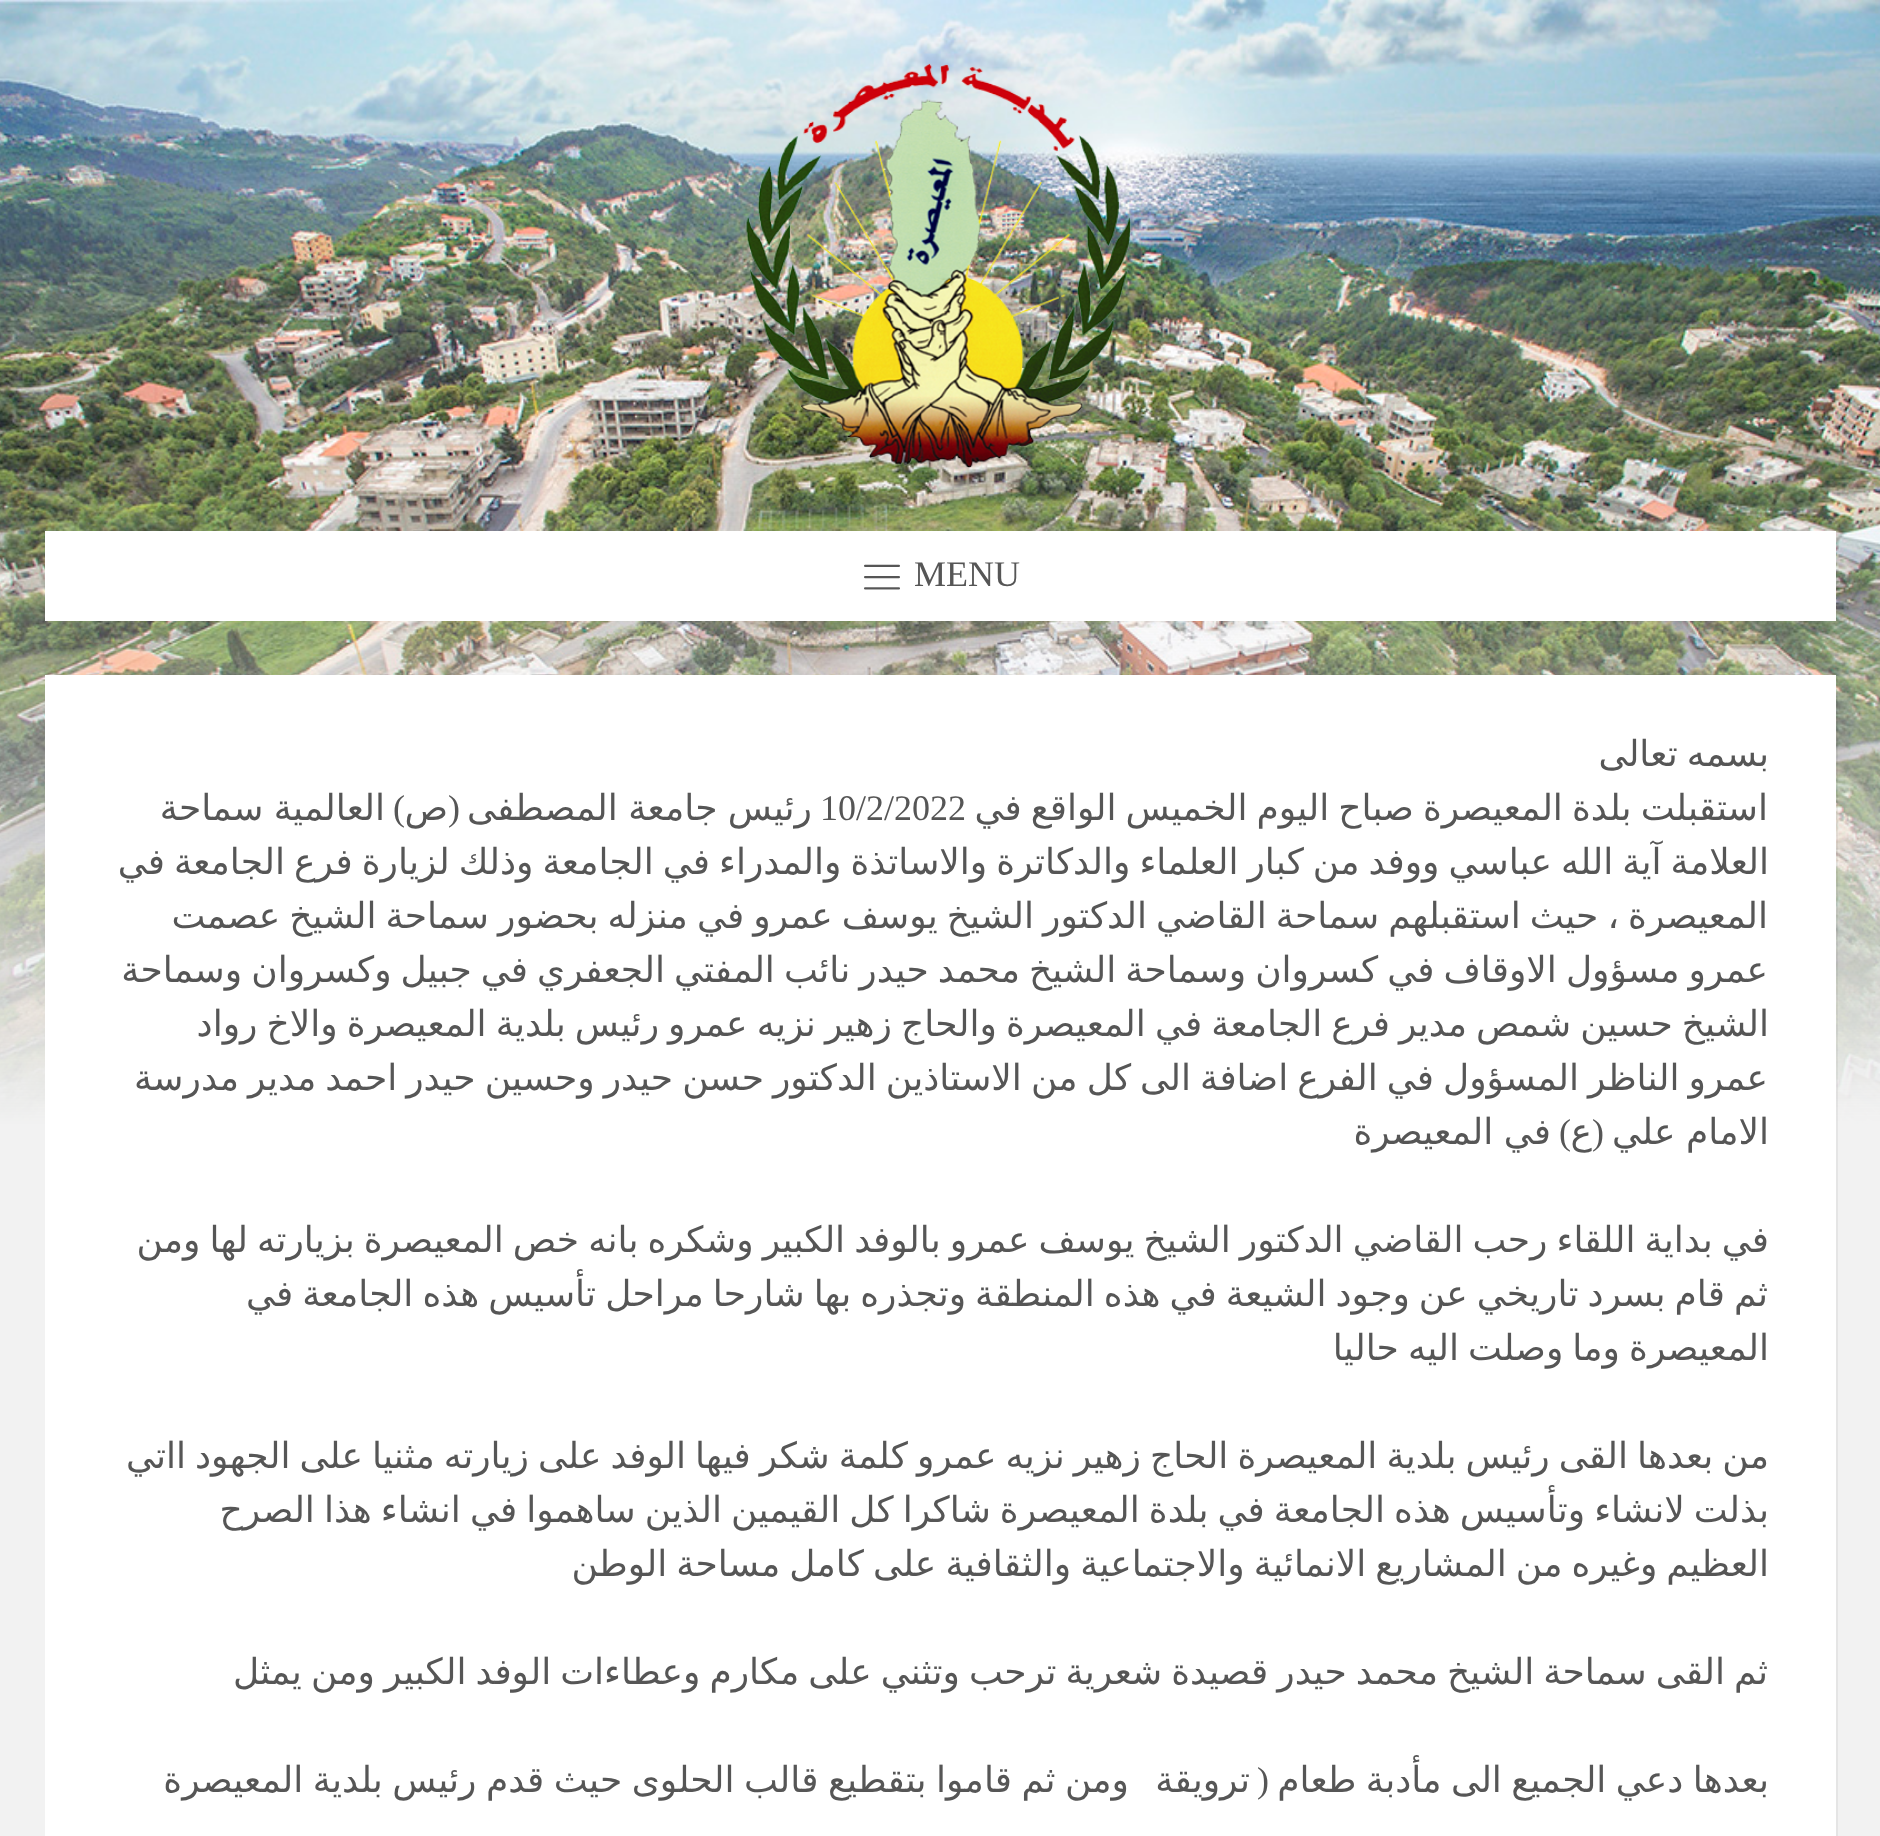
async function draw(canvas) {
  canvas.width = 1880;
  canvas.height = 1836;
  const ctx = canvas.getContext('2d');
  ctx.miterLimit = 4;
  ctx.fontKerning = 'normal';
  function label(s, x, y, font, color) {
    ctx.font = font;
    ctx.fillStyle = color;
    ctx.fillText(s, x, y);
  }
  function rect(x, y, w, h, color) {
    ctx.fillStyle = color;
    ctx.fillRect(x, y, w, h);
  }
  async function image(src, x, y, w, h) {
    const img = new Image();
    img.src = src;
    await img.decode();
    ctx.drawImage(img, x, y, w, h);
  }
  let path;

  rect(0, 0, 1880, 1836, '#f2f2f2');
  await image('assets/img1.png', 0, 0, 1880, 1125);
  await image('assets/img2.png', 745, 63, 387, 406);
  rect(45, 531, 1791, 90, '#fff');
  label('MENU', 914, 586, '36px Liberation Serif', '#565656');
  await image('assets/img3.png', 864, 564, 36, 26);
  ctx.fillStyle = '#0000000d';
  path = new Path2D('M47 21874V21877H1838V677H1836V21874Z');
  ctx.fill(path);
  rect(45, 675, 1791, 1161, '#fff');
  ctx.wordSpacing = '-2.4px';
  ctx.direction = 'rtl';
  label('بسمه تعالى', 1769, 766, '36px DejaVu Sans', '#565656');
  ctx.save();
  ctx.beginPath();
  ctx.rect(113, 729, 1656, 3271);
  ctx.clip();
  label('استقبلت بلدة المعيصرة صباح اليوم الخميس الواقع في', 1768, 820, '36px DejaVu Sans', '#565656');
  ctx.restore();
  ctx.wordSpacing = '0px';
  ctx.direction = 'ltr';
  label('10/2/2022', 820, 820, '36px Liberation Serif', '#565656');
  ctx.wordSpacing = '-1px';
  ctx.direction = 'rtl';
  label('رئيس جامعة المصطفى', 812, 820, '36px DejaVu Sans', '#565656');
  ctx.wordSpacing = '0px';
  label('(', 460, 820, '36px Liberation Serif', '#565656');
  label('ص', 448, 820, '36px DejaVu Sans', '#565656');
  label(')', 405, 820, '36px Liberation Serif', '#565656');
  ctx.wordSpacing = '-1px';
  label('العالمية سماحة', 385, 820, '36px DejaVu Sans', '#565656');
  ctx.save();
  ctx.beginPath();
  ctx.rect(113, 729, 1656, 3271);
  ctx.clip();
  ctx.wordSpacing = '-2.4px';
  label('العلامة آية الله عباسي ووفد من كبار العلماء والدكاترة والاساتذة والمدراء في الجامعة وذلك لزيارة فرع الجامعة في', 1769, 874, '36px DejaVu Sans', '#565656');
  label('المعيصرة ، حيث استقبلهم سماحة القاضي الدكتور الشيخ يوسف عمرو في منزله بحضور سماحة الشيخ عصمت', 1768, 928, '36px DejaVu Sans', '#565656');
  label('عمرو مسؤول الاوقاف في كسروان وسماحة الشيخ محمد حيدر نائب المفتي الجعفري في جبيل وكسروان وسماحة', 1768, 982, '36px DejaVu Sans', '#565656');
  label('الشيخ حسين شمص مدير فرع الجامعة في المعيصرة والحاج زهير نزيه عمرو رئيس بلدية المعيصرة والاخ رواد', 1769, 1036, '36px DejaVu Sans', '#565656');
  label('عمرو الناظر المسؤول في الفرع اضافة الى كل من الاستاذين الدكتور حسن حيدر وحسين حيدر احمد مدير مدرسة', 1768, 1090, '36px DejaVu Sans', '#565656');
  ctx.restore();
  label('الامام علي', 1769, 1144, '36px DejaVu Sans', '#565656');
  ctx.wordSpacing = '0px';
  label('(', 1604, 1144, '36px Liberation Serif', '#565656');
  label('ع', 1592, 1144, '36px DejaVu Sans', '#565656');
  label(')', 1571, 1144, '36px Liberation Serif', '#565656');
  ctx.wordSpacing = '-1px';
  label('في المعيصرة', 1551, 1144, '36px DejaVu Sans', '#565656');
  ctx.save();
  ctx.beginPath();
  ctx.rect(113, 729, 1656, 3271);
  ctx.clip();
  ctx.wordSpacing = '-2.4px';
  label('في بداية اللقاء رحب القاضي الدكتور الشيخ يوسف عمرو بالوفد الكبير وشكره بانه خص المعيصرة بزيارته لها ومن', 1769, 1252, '36px DejaVu Sans', '#565656');
  label('ثم قام بسرد تاريخي عن وجود الشيعة في هذه المنطقة وتجذره بها شارحا مراحل تأسيس هذه الجامعة في', 1768, 1306, '36px DejaVu Sans', '#565656');
  label('المعيصرة وما وصلت اليه حاليا', 1769, 1360, '36px DejaVu Sans', '#565656');
  label('من بعدها القى رئيس بلدية المعيصرة الحاج زهير نزيه عمرو كلمة شكر فيها الوفد على زيارته مثنيا على الجهود ااتي', 1769, 1468, '36px DejaVu Sans', '#565656');
  label('بذلت لانشاء وتأسيس هذه الجامعة في بلدة المعيصرة شاكرا كل القيمين الذين ساهموا في انشاء هذا الصرح', 1769, 1522, '36px DejaVu Sans', '#565656');
  label('العظيم وغيره من المشاريع الانمائية والاجتماعية والثقافية على كامل مساحة الوطن', 1769, 1576, '36px DejaVu Sans', '#565656');
  label('ثم القى سماحة الشيخ محمد حيدر قصيدة شعرية ترحب وتثني على مكارم وعطاءات الوفد الكبير ومن يمثل', 1768, 1684, '36px DejaVu Sans', '#565656');
  ctx.wordSpacing = '-2px';
  label('بعدها دعي الجميع الى مأدبة طعام', 1769, 1792, '36px DejaVu Sans', '#565656');
  ctx.restore();
  ctx.wordSpacing = '0px';
  label('(', 1269, 1792, '36px Liberation Serif', '#565656');
  label('ترويقة', 1250, 1792, '36px DejaVu Sans', '#565656');
  ctx.wordSpacing = '-2px';
  label('ومن ثم قاموا بتقطيع قالب الحلوى حيث قدم رئيس بلدية المعيصرة', 1129, 1792, '36px DejaVu Sans', '#565656');
}

draw(document.querySelector('canvas'));
